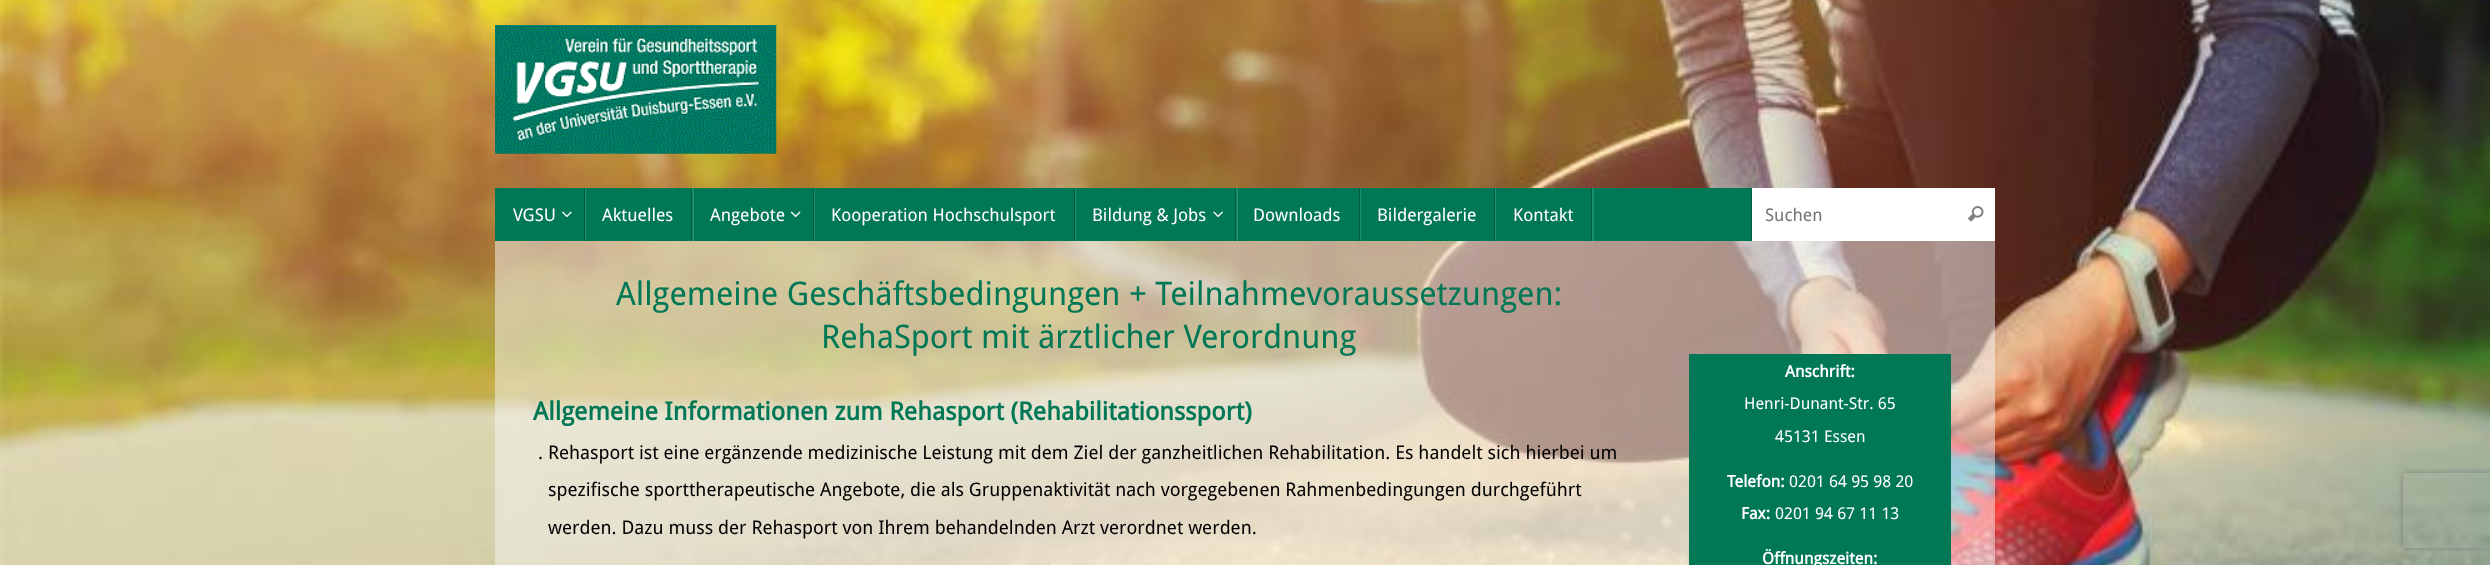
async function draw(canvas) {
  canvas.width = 2490;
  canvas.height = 565;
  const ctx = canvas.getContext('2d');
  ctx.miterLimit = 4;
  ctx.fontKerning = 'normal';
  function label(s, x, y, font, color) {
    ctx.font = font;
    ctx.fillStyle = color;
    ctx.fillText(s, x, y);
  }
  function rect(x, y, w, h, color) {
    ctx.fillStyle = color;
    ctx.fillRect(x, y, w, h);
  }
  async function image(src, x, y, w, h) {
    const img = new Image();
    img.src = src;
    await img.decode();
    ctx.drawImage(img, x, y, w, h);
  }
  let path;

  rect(0, 0, 2490, 565, '#fff');
  await image('assets/img1.png', 0, 0, 2490, 565);
  await image('assets/img2.png', 495, 25, 282, 129);
  rect(495, 188, 1256, 53, '#075');
  rect(585, 188, 1, 53, '#188f6d');
  rect(584, 188, 1, 53, '#005937');
  label('VGSU', 513, 221, '17.5px Droid Sans', '#fff');
  await image('assets/img3.png', 562, 211, 10, 7);
  rect(692, 188, 2, 53, '#188f6d');
  rect(691, 188, 1, 53, '#005937');
  label('Aktuelles', 602, 221, '17.5px Droid Sans', '#fff');
  rect(814, 188, 1, 53, '#188f6d');
  rect(813, 188, 1, 53, '#005937');
  label('Angebote', 710, 221, '17.5px Droid Sans', '#fff');
  await image('assets/img4.png', 790, 211, 11, 7);
  rect(1075, 188, 1, 53, '#188f6d');
  rect(1074, 188, 1, 53, '#005937');
  label('Kooperation Hochschulsport', 831, 221, '17.5px Droid Sans', '#fff');
  rect(1236, 188, 2, 53, '#188f6d');
  rect(1235, 188, 1, 53, '#005937');
  label('Bildung & Jobs', 1092, 221, '17.5px Droid Sans', '#fff');
  await image('assets/img5.png', 1213, 211, 10, 7);
  rect(1360, 188, 1, 53, '#188f6d');
  rect(1359, 188, 1, 53, '#005937');
  label('Downloads', 1253, 221, '17.5px Droid Sans', '#fff');
  rect(1495, 188, 1, 53, '#188f6d');
  rect(1494, 188, 1, 53, '#005937');
  label('Bildergalerie', 1377, 221, '17.5px Droid Sans', '#fff');
  rect(1592, 188, 2, 53, '#188f6d');
  rect(1591, 188, 1, 53, '#005937');
  label('Kontakt', 1513, 221, '17.5px Droid Sans', '#fff');
  rect(1752, 188, 243, 53, '#fff');
  rect(1751, 188, 1, 53, '#005937');
  label('Suchen', 1765, 221, '17.5px Droid Sans', '#757575');
  await image('assets/img6.png', 1968, 206, 16, 16);
  rect(495, 241, 1500, 324, '#f6f6f680');
  label('Allgemeine Geschäftsbedingungen + Teilnahmevoraussetzungen:', 616, 305, '32.5px Droid Sans', '#075');
  label('RehaSport mit ärztlicher Verordnung', 821, 348, '32.5px Droid Sans', '#075');
  label('Allgemeine Informationen zum Rehasport (Rehabilitationssport)', 533, 420, 'bold 25px Droid Sans', '#075');
  label('. Rehasport ist eine ergänzende medizinische Leistung mit dem Ziel der ganzheitlichen Rehabilitation. Es handelt sich hierbei um', 538, 459, '18.75px Droid Sans', '#000');
  label('spezifische sporttherapeutische Angebote, die als Gruppenaktivität nach vorgegebenen Rahmenbedingungen durchgeführt', 548, 496, '18.75px Droid Sans', '#000');
  label('werden. Dazu muss der Rehasport von Ihrem behandelnden Arzt verordnet werden.', 548, 534, '18.75px Droid Sans', '#000');
  rect(1689, 354, 262, 211, '#075');
  label('Anschrift:', 1785, 377, 'bold 16.25px Droid Sans', '#fff');
  label('Henri-Dunant-Str. 65', 1744, 409, '16.25px Droid Sans', '#fff');
  label('45131 Essen', 1775, 442, '16.25px Droid Sans', '#fff');
  label('Telefon:', 1727, 487, 'bold 16.25px Droid Sans', '#fff');
  label('0201 64 95 98 20', 1789, 487, '16.25px Droid Sans', '#fff');
  label('Fax:', 1741, 519, 'bold 16.25px Droid Sans', '#fff');
  label('0201 94 67 11 13', 1775, 519, '16.25px Droid Sans', '#fff');
  label('Öffnungszeiten:', 1762, 564, 'bold 16.25px Droid Sans', '#fff');
  ctx.save();
  path = new Path2D('M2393 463H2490V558H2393ZM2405.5 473H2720.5C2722 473 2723 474 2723 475.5V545.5C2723 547 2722 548 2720.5 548H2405.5C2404 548 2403 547 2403 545.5V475.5C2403 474 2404 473 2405.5 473Z');
  ctx.clip(path, 'evenodd');
  ctx.fillStyle = '#808080';
  ctx.filter = 'blur(3px)';
  ctx.beginPath();
  ctx.roundRect(2403, 473, 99, 75, 2.5);
  ctx.fill();
  ctx.filter = 'none';
  ctx.restore();
}

draw(document.querySelector('canvas'));
